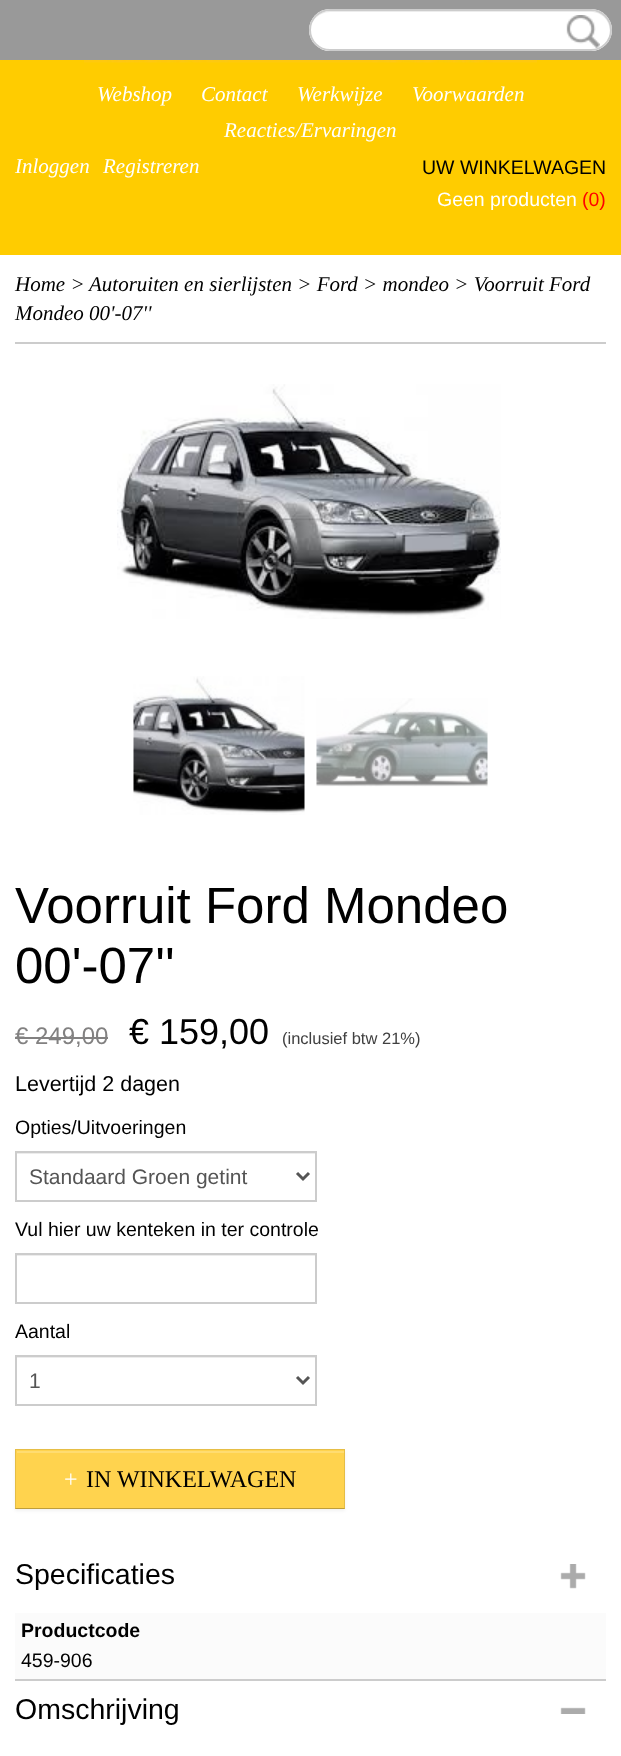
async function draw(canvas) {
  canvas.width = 621;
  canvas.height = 1756;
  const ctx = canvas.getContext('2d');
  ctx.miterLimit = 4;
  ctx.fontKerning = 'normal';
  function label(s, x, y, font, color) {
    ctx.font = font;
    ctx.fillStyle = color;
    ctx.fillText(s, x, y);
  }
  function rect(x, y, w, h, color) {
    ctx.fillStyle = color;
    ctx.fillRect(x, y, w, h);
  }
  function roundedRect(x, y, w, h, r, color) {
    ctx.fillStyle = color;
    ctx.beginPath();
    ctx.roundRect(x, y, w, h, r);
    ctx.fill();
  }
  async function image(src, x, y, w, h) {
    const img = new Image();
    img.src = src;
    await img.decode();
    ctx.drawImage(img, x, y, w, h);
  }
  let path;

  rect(0, 0, 621, 1756, '#fc0');
  rect(0, 0, 621, 60, '#999');
  roundedRect(309, 9, 303, 42, 21, '#fff');
  ctx.fillStyle = '#ececec';
  path = new Path2D('M330 12H591C602 12 610 21 610 32C610 36 609 40 607 43C609 39 611 35 611 30C611 20 602 11 592 11H330C324 11 318 14 314 20C318 15 324 12 330 12Z');
  ctx.fill(path);
  ctx.beginPath();
  ctx.roundRect(310, 10, 301, 40, 20);
  ctx.strokeStyle = '#ccc';
  ctx.lineWidth = 2;
  ctx.stroke();
  await image('assets/img1.png', 566, 15, 34, 33);
  await image('assets/img2.png', 84, 60, 453, 3);
  label('Webshop', 97, 101, 'italic 21px Liberation Serif', '#fff');
  label('Contact', 201, 101, 'italic 21px Liberation Serif', '#fff');
  label('Werkwijze', 297, 101, 'italic 21px Liberation Serif', '#fff');
  label('Voorwaarden', 412, 101, 'italic 21px Liberation Serif', '#fff');
  label('Reacties/Ervaringen', 224, 137, 'italic 21px Liberation Serif', '#fff');
  label('Inloggen', 15, 173, 'italic 21px Liberation Serif', '#fff');
  label('Registreren', 103, 173, 'italic 21px Liberation Serif', '#fff');
  label('UW WINKELWAGEN', 422, 174, '19.5px Liberation Sans', '#000');
  label('Geen producten', 437, 206, '19.5px Liberation Sans', '#fff');
  label('(0)', 582, 206, '19.5px Liberation Sans', '#f00');
  rect(0, 255, 621, 1501, '#fff');
  rect(15, 342, 591, 2, '#ccc');
  label('Home >', 15, 291, 'italic 21px Liberation Serif', '#000');
  label('Autoruiten en sierlijsten > Ford > mondeo > Voorruit Ford', 89, 291, 'italic 21px Liberation Serif', '#000');
  label('Mondeo 00\'-07\'\'', 15, 320, 'italic 21px Liberation Serif', '#000');
  await image('assets/img3.png', 117, 384, 384, 235);
  await image('assets/img4.png', 133, 676, 172, 139);
  await image('assets/img5.png', 316, 698, 172, 89);
  label('Voorruit Ford Mondeo', 15, 923, '51px Liberation Sans', '#000');
  label('00\'-07\'\'', 15, 983, '51px Liberation Sans', '#000');
  label('€ 249,00', 15, 1044, '24px Liberation Sans', '#828181');
  rect(15, 1037, 93, 2, '#828181');
  label('€ 159,00', 129, 1044, '36px Liberation Sans', '#000');
  label('(inclusief btw 21%)', 282, 1044, '16.5px Liberation Sans', '#404040');
  label('Levertijd 2 dagen', 15, 1091, '21.5px Liberation Sans', '#000');
  label('Opties/Uitvoeringen', 15, 1134, '19.5px Liberation Sans', '#000');
  rect(17, 1153, 298, 1, '#ececec');
  ctx.strokeRect(16, 1152, 300, 49);
  path = new Path2D('M297 1173L303 1179L309 1173');
  ctx.strokeStyle = '#555';
  ctx.lineWidth = 3;
  ctx.stroke(path);
  label('Standaard Groen getint', 29, 1184, '21px Liberation Sans', '#555');
  label('Vul hier uw kenteken in ter controle', 15, 1236, '19.5px Liberation Sans', '#000');
  rect(17, 1255, 298, 1, '#ececec');
  ctx.strokeStyle = '#ccc';
  ctx.lineWidth = 2;
  ctx.strokeRect(16, 1254, 300, 49);
  label('Aantal', 15, 1338, '19.5px Liberation Sans', '#000');
  rect(17, 1357, 298, 1, '#ececec');
  ctx.strokeRect(16, 1356, 300, 49);
  path = new Path2D('M297 1377L303 1383L309 1377');
  ctx.strokeStyle = '#555';
  ctx.lineWidth = 3;
  ctx.stroke(path);
  label('1', 29, 1388, '21px Liberation Sans', '#555');
  ctx.fillStyle = '#0000000d';
  ctx.filter = 'blur(1.5px)';
  ctx.beginPath();
  ctx.rect(15, 1451, 330, 60);
  ctx.fill();
  ctx.filter = 'none';
  rect(15, 1449, 330, 60, '#ffd34e');
  rect(17, 1451, 327, 2, '#ffdc71');
  ctx.fillStyle = '#e6be46';
  path = new Path2D('M15 1449H345L344 1450H16Z');
  ctx.fill(path);
  ctx.fillStyle = '#0000001a';
  path = new Path2D('M345 1449V1509L344 1508V1450Z');
  ctx.fill(path);
  ctx.fillStyle = '#00000040';
  path = new Path2D('M345 1509H15L16 1508H344Z');
  ctx.fill(path);
  ctx.fillStyle = '#0000001a';
  path = new Path2D('M15 1509V1449L16 1450V1508Z');
  ctx.fill(path);
  label('+', 64, 1487, '24px Liberation Serif', '#fff');
  label('IN WINKELWAGEN', 86, 1487, '24px Liberation Serif', '#000');
  rect(15, 1679, 591, 2, '#ccc');
  await image('assets/img6.png', 560, 1564, 26, 25);
  label('Specificaties', 15, 1584, '28.5px Liberation Sans', '#000');
  rect(15, 1613, 591, 66, '#fbfbfb');
  label('Productcode', 21, 1637, 'bold 19.5px Liberation Sans', '#000');
  label('459-906', 21, 1667, '19.5px Liberation Sans', '#000');
  await image('assets/img7.png', 560, 1707, 26, 7);
  label('Omschrijving', 15, 1719, '28.5px Liberation Sans', '#000');
}

draw(document.querySelector('canvas'));
